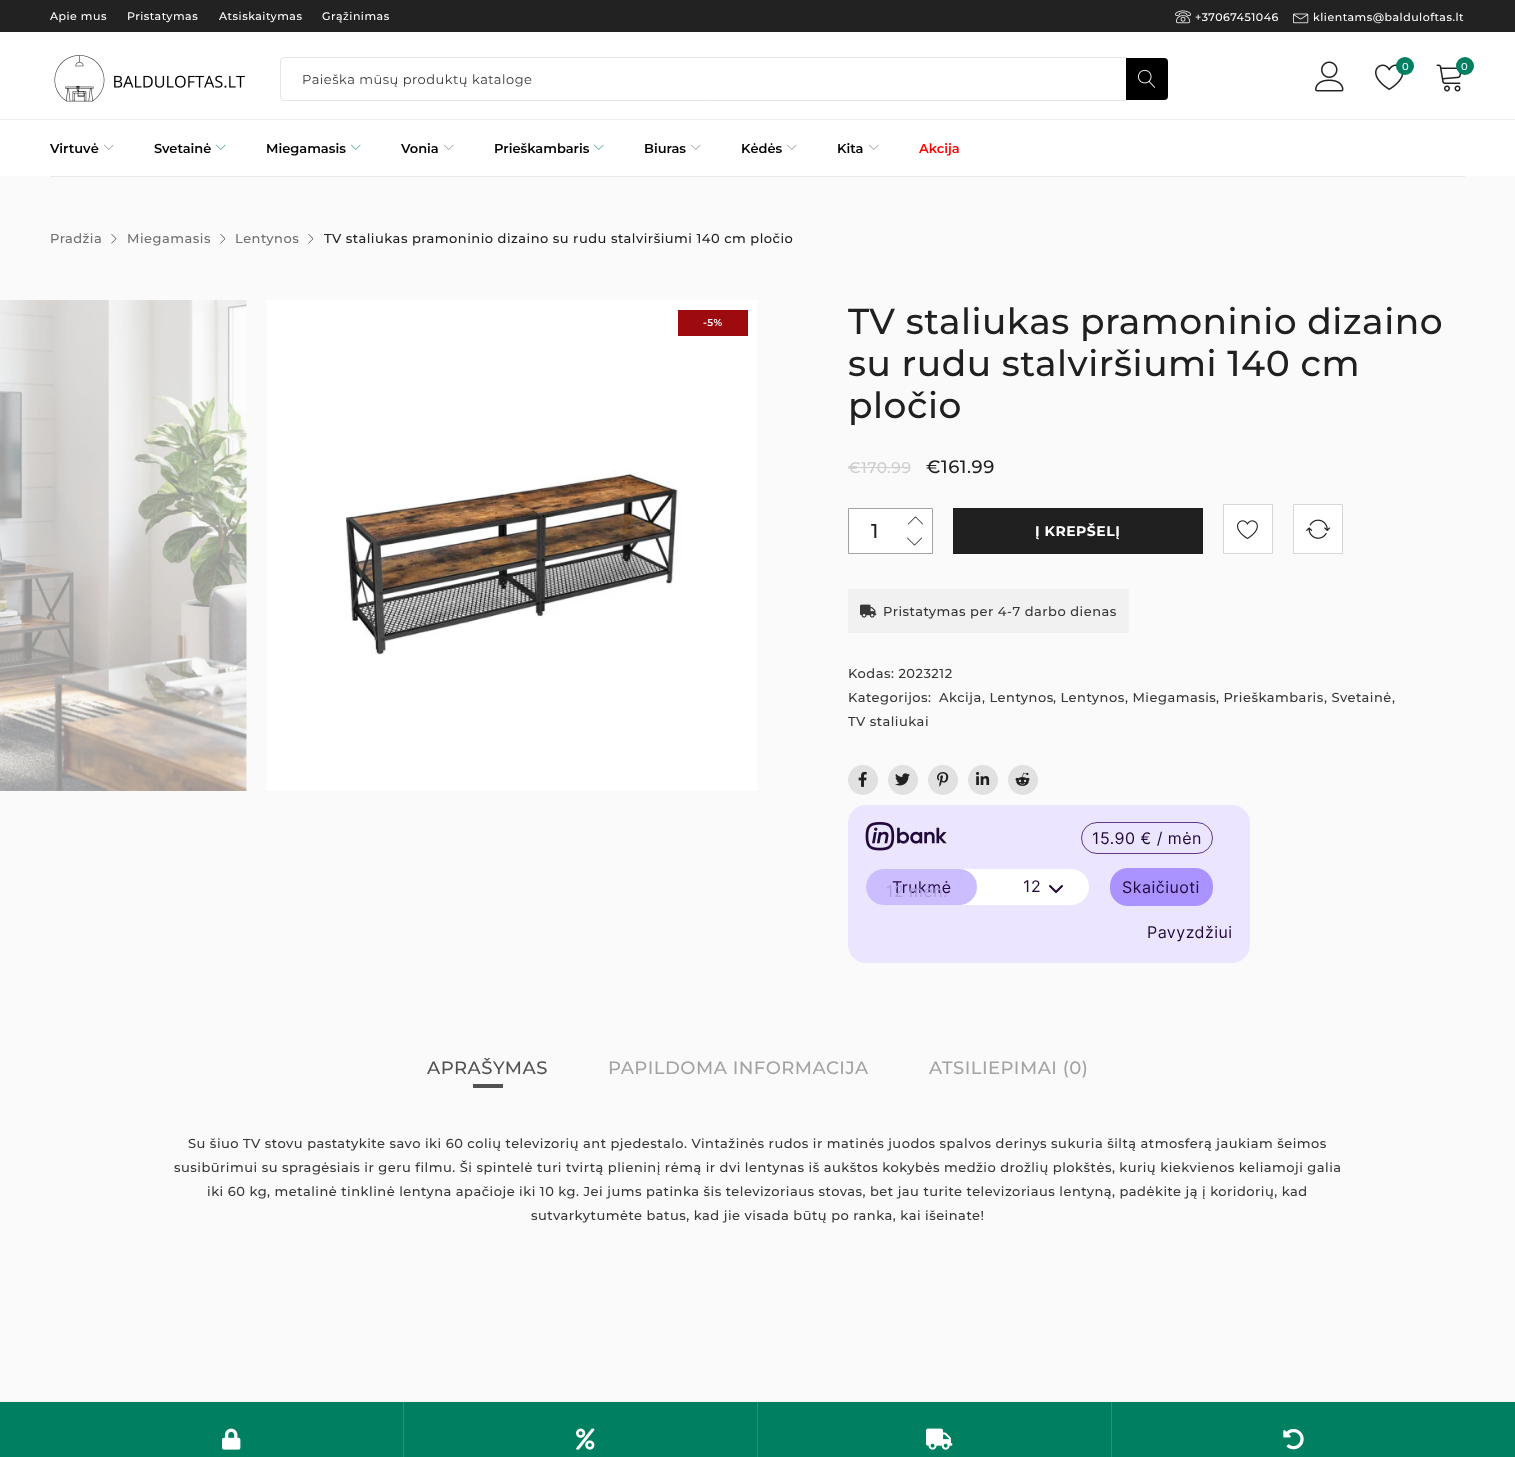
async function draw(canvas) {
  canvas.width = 1515;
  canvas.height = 1457;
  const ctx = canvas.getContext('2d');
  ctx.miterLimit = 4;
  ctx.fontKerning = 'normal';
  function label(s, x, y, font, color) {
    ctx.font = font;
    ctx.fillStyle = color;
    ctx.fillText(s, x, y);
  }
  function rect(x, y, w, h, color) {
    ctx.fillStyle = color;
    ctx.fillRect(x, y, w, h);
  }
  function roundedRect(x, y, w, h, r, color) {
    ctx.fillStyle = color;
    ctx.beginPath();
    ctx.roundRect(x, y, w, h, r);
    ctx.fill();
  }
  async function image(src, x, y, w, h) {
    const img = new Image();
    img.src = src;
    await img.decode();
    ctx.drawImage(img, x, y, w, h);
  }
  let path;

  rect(0, 0, 1515, 1457, '#fff');
  rect(0, 0, 1515, 32, '#222');
  ctx.letterSpacing = '0.5px';
  label('Apie mus', 50, 20, '500 11px Montserrat', '#fff');
  label('Pristatymas', 127, 20, '500 11px Montserrat', '#fff');
  label('Atsiskaitymas', 219, 20, '500 11px Montserrat', '#fff');
  label('Grąžinimas', 322, 20, '500 11px Montserrat', '#fff');
  await image('assets/img1.png', 1175, 10, 16, 14);
  label('+37067451046', 1195, 21, '500 11px Montserrat', '#fff');
  await image('assets/img2.png', 1293, 13, 16, 11);
  label('klientams@balduloftas.lt', 1313, 21, '500 11px Montserrat', '#fff');
  await image('assets/img3.png', 54, 55, 191, 47);
  await image('assets/img4.png', 1315, 61, 29, 31);
  await image('assets/img5.png', 1375, 64, 29, 26);
  ctx.fillStyle = '#008060';
  ctx.beginPath();
  ctx.arc(1405, 66, 9, 0, 2 * Math.PI);
  ctx.fill();
  ctx.letterSpacing = '0px';
  label('0', 1402, 70, '500 10px Montserrat', '#fff');
  await image('assets/img6.png', 1436, 64, 25, 28);
  ctx.fillStyle = '#008060';
  ctx.beginPath();
  ctx.arc(1465, 66, 9, 0, 2 * Math.PI);
  ctx.fill();
  ctx.letterSpacing = '0.5px';
  label('0', 1461, 70, '500 10px Montserrat', '#fff');
  ctx.beginPath();
  ctx.roundRect(280.5, 57.5, 848, 43, 3.5);
  ctx.strokeStyle = '#e5e5e5';
  ctx.stroke();
  label('Paieška mūsų produktų kataloge', 302, 84, '13px Montserrat', '#383838');
  ctx.fillStyle = '#000';
  ctx.beginPath();
  ctx.roundRect(1126, 58, 42, 42, [0, 4, 4, 0]);
  ctx.fill();
  await image('assets/img7.png', 1138, 69, 17, 19);
  rect(0, 119, 1515, 1, '#eee');
  ctx.letterSpacing = '0px';
  label('Virtuvė', 50, 153, '600 13px Montserrat', '#000');
  await image('assets/img8.png', 104, 144, 10, 6);
  label('Svetainė', 154, 153, '600 13px Montserrat', '#000');
  await image('assets/img9.png', 216, 144, 10, 6);
  label('Miegamasis', 266, 153, '600 13px Montserrat', '#000');
  await image('assets/img9.png', 351, 144, 10, 6);
  label('Vonia', 401, 153, '600 13px Montserrat', '#000');
  await image('assets/img8.png', 444, 144, 10, 6);
  label('Prieškambaris', 494, 153, '600 13px Montserrat', '#000');
  await image('assets/img9.png', 594, 144, 10, 6);
  label('Biuras', 644, 153, '600 13px Montserrat', '#000');
  await image('assets/img8.png', 691, 144, 10, 6);
  label('Kėdės', 741, 153, '600 13px Montserrat', '#000');
  await image('assets/img8.png', 787, 144, 10, 6);
  label('Kita', 837, 153, '600 13px Montserrat', '#000');
  await image('assets/img8.png', 869, 144, 10, 6);
  label('Akcija', 919, 153, '600 13px Montserrat', '#f00');
  rect(0, 176, 1515, 1225, '#fafafa');
  rect(50, 176, 1415, 1, '#e9e9e9');
  ctx.letterSpacing = '0.5px';
  label('Pradžia', 50, 243, '500 13px Montserrat', '#707070');
  await image('assets/img10.png', 111, 234, 6, 10);
  label('Miegamasis', 127, 243, '500 13px Montserrat', '#707070');
  await image('assets/img10.png', 220, 234, 6, 10);
  label('Lentynos', 235, 243, '500 13px Montserrat', '#707070');
  await image('assets/img10.png', 308, 234, 6, 10);
  label('TV staliukas pramoninio dizaino su rudu stalviršiumi 140 cm pločio', 324, 243, '500 13px Montserrat', '#202020');
  await image('assets/img11.png', 0, 300, 247, 491);
  await image('assets/img12.png', 267, 300, 490, 491);
  rect(678, 310, 70, 26, '#9e0b0f');
  label('-5%', 703, 326, '600 10px Montserrat', '#fff');
  label('TV staliukas pramoninio dizaino', 848, 334, '500 36px Montserrat', '#202020');
  label('su rudu stalviršiumi 140 cm', 848, 376, '500 36px Montserrat', '#202020');
  label('pločio', 848, 418, '500 36px Montserrat', '#202020');
  label('€170.99', 848, 473, '500 15.5px Montserrat', '#cfcfcf');
  rect(848, 467, 62, 1, '#cfcfcf');
  label('€161.99', 926, 473, '500 18px Montserrat', '#202020');
  ctx.fillStyle = '#fff';
  ctx.beginPath();
  ctx.rect(848.5, 508.5, 84, 45);
  ctx.fill();
  ctx.strokeStyle = '#a3a3a3';
  ctx.stroke();
  await image('assets/img13.png', 908, 516, 15, 9);
  label('1', 871, 538, '500 20px Montserrat', '#202020');
  await image('assets/img14.png', 907, 537, 15, 9);
  rect(953, 508, 250, 46, '#202020');
  label('Į KREPŠELĮ', 1035, 536, 'bold 14px Montserrat', '#fff');
  ctx.beginPath();
  ctx.rect(1223.5, 504.5, 49, 49);
  ctx.fill();
  ctx.strokeStyle = '#d7d7d7';
  ctx.stroke();
  await image('assets/img15.png', 1237, 520, 21, 19);
  ctx.beginPath();
  ctx.rect(1293.5, 504.5, 49, 49);
  ctx.fill();
  ctx.stroke();
  await image('assets/img16.png', 1306, 519, 25, 20);
  rect(848, 589, 281, 44, '#f1f1f1');
  await image('assets/img17.png', 860, 604, 17, 14);
  label('Pristatymas per 4-7 darbo dienas', 883, 616, '500 13px Montserrat', '#383838');
  label('Kodas: 2023212', 848, 678, '500 13px Montserrat', '#383838');
  label('Akcija', 939, 702, '500 13px Montserrat', '#383838');
  label(', Lentynos', 982, 702, '500 13px Montserrat', '#383838');
  label(', Lentynos', 1053, 702, '500 13px Montserrat', '#383838');
  label(', Miegamasis', 1125, 702, '500 13px Montserrat', '#383838');
  label(', Prieškambaris', 1216, 702, '500 13px Montserrat', '#383838');
  label(', Svetainė', 1324, 702, '500 13px Montserrat', '#383838');
  label(',', 1392, 702, '500 13px Montserrat', '#383838');
  label('TV staliukai', 848, 726, '500 13px Montserrat', '#383838');
  label('Kategorijos:', 848, 702, '500 13px Montserrat', '#383838');
  ctx.fillStyle = '#e1e1e1';
  ctx.beginPath();
  ctx.arc(863, 780, 15, 0, 2 * Math.PI);
  ctx.fill();
  await image('assets/img18.png', 858, 771, 9, 16);
  ctx.beginPath();
  ctx.arc(903, 780, 15, 0, 2 * Math.PI);
  ctx.fill();
  await image('assets/img19.png', 895, 773, 15, 13);
  ctx.beginPath();
  ctx.arc(943, 780, 15, 0, 2 * Math.PI);
  ctx.fill();
  await image('assets/img20.png', 937, 772, 12, 15);
  ctx.beginPath();
  ctx.arc(983, 780, 15, 0, 2 * Math.PI);
  ctx.fill();
  await image('assets/img21.png', 976, 771, 14, 14);
  ctx.beginPath();
  ctx.arc(1023, 780, 15, 0, 2 * Math.PI);
  ctx.fill();
  await image('assets/img22.png', 1015, 772, 15, 14);
  ctx.fillStyle = '#ebe5ff';
  ctx.beginPath();
  ctx.roundRect(848.5, 805.5, 401, 157, 17.5);
  ctx.fill();
  ctx.strokeStyle = '#ebe5ff';
  ctx.stroke();
  await image('assets/img23.png', 865, 822, 82, 29);
  ctx.beginPath();
  ctx.roundRect(1081.5, 822.5, 131, 31, 15.5);
  ctx.strokeStyle = '#60378b';
  ctx.stroke();
  label('15.90 € / mėn', 1092, 844, '16px Inter', '#21093a');
  ctx.fillStyle = '#fff';
  ctx.beginPath();
  ctx.roundRect(865.5, 868.5, 224, 37, 18.5);
  ctx.fill();
  ctx.strokeStyle = '#ebe5ff';
  ctx.stroke();
  roundedRect(866, 869, 111, 36, 18, '#cbbdff');
  label('Trukmė', 892, 893, '16px Inter', '#21093a');
  label('12 mėn.', 886, 897, '16px Inter', '#b0a0df');
  label('12', 1023, 892, '16px Inter', '#21093a');
  path = new Path2D('M1050 886L1056 892L1062 886');
  ctx.strokeStyle = '#21093a';
  ctx.lineWidth = 2;
  ctx.lineCap = 'round';
  ctx.lineJoin = 'round';
  ctx.stroke(path);
  roundedRect(1110, 868, 103, 38, 18, '#aa93ff');
  label('Skaičiuoti', 1122, 893, '16px Inter', '#21093a');
  label('Pavyzdžiui', 1147, 938, '16px Inter', '#21093a');
  label('APRAŠYMAS', 427, 1074, '500 18px Montserrat', '#515151');
  rect(473, 1084, 30, 4, '#515151');
  label('PAPILDOMA INFORMACIJA', 608, 1074, '500 18px Montserrat', '#a3a3a3');
  label('ATSILIEPIMAI (0)', 929, 1074, '500 18px Montserrat', '#a3a3a3');
  label('Su šiuo TV stovu pastatykite savo iki 60 colių televizorių ant pjedestalo. Vintažinės rudos ir matinės juodos spalvos derinys sukuria šiltą atmosferą jaukiam šeimos', 188, 1148, '500 13px Montserrat', '#383838');
  label('susibūrimui su spragėsiais ir geru filmu. Ši spintelė turi tvirtą plieninį rėmą ir dvi lentynas iš aukštos kokybės medžio drožlių plokštės, kurių kiekvienos keliamoji galia', 174, 1172, '500 13px Montserrat', '#383838');
  label('iki 60 kg, metalinė tinklinė lentyna apačioje iki 10 kg. Jei jums patinka šis televizoriaus stovas, bet jau turite televizoriaus lentyną, padėkite ją į koridorių, kad', 207, 1196, '500 13px Montserrat', '#383838');
  label('sutvarkytumėte batus, kad jie visada būtų po ranka, kai išeinate!', 531, 1220, '500 13px Montserrat', '#383838');
  rect(0, 1402, 1515, 55, '#008060');
  rect(0, 1401, 1515, 1, '#f1f1f1');
  rect(403, 1402, 1, 55, '#269378');
  await image('assets/img24.png', 222, 1428, 19, 22);
  rect(757, 1402, 1, 55, '#269378');
  await image('assets/img25.png', 576, 1428, 19, 22);
  rect(1111, 1402, 1, 55, '#269378');
  await image('assets/img26.png', 926, 1428, 27, 22);
  await image('assets/img27.png', 1283, 1428, 21, 22);
}

draw(document.querySelector('canvas'));
